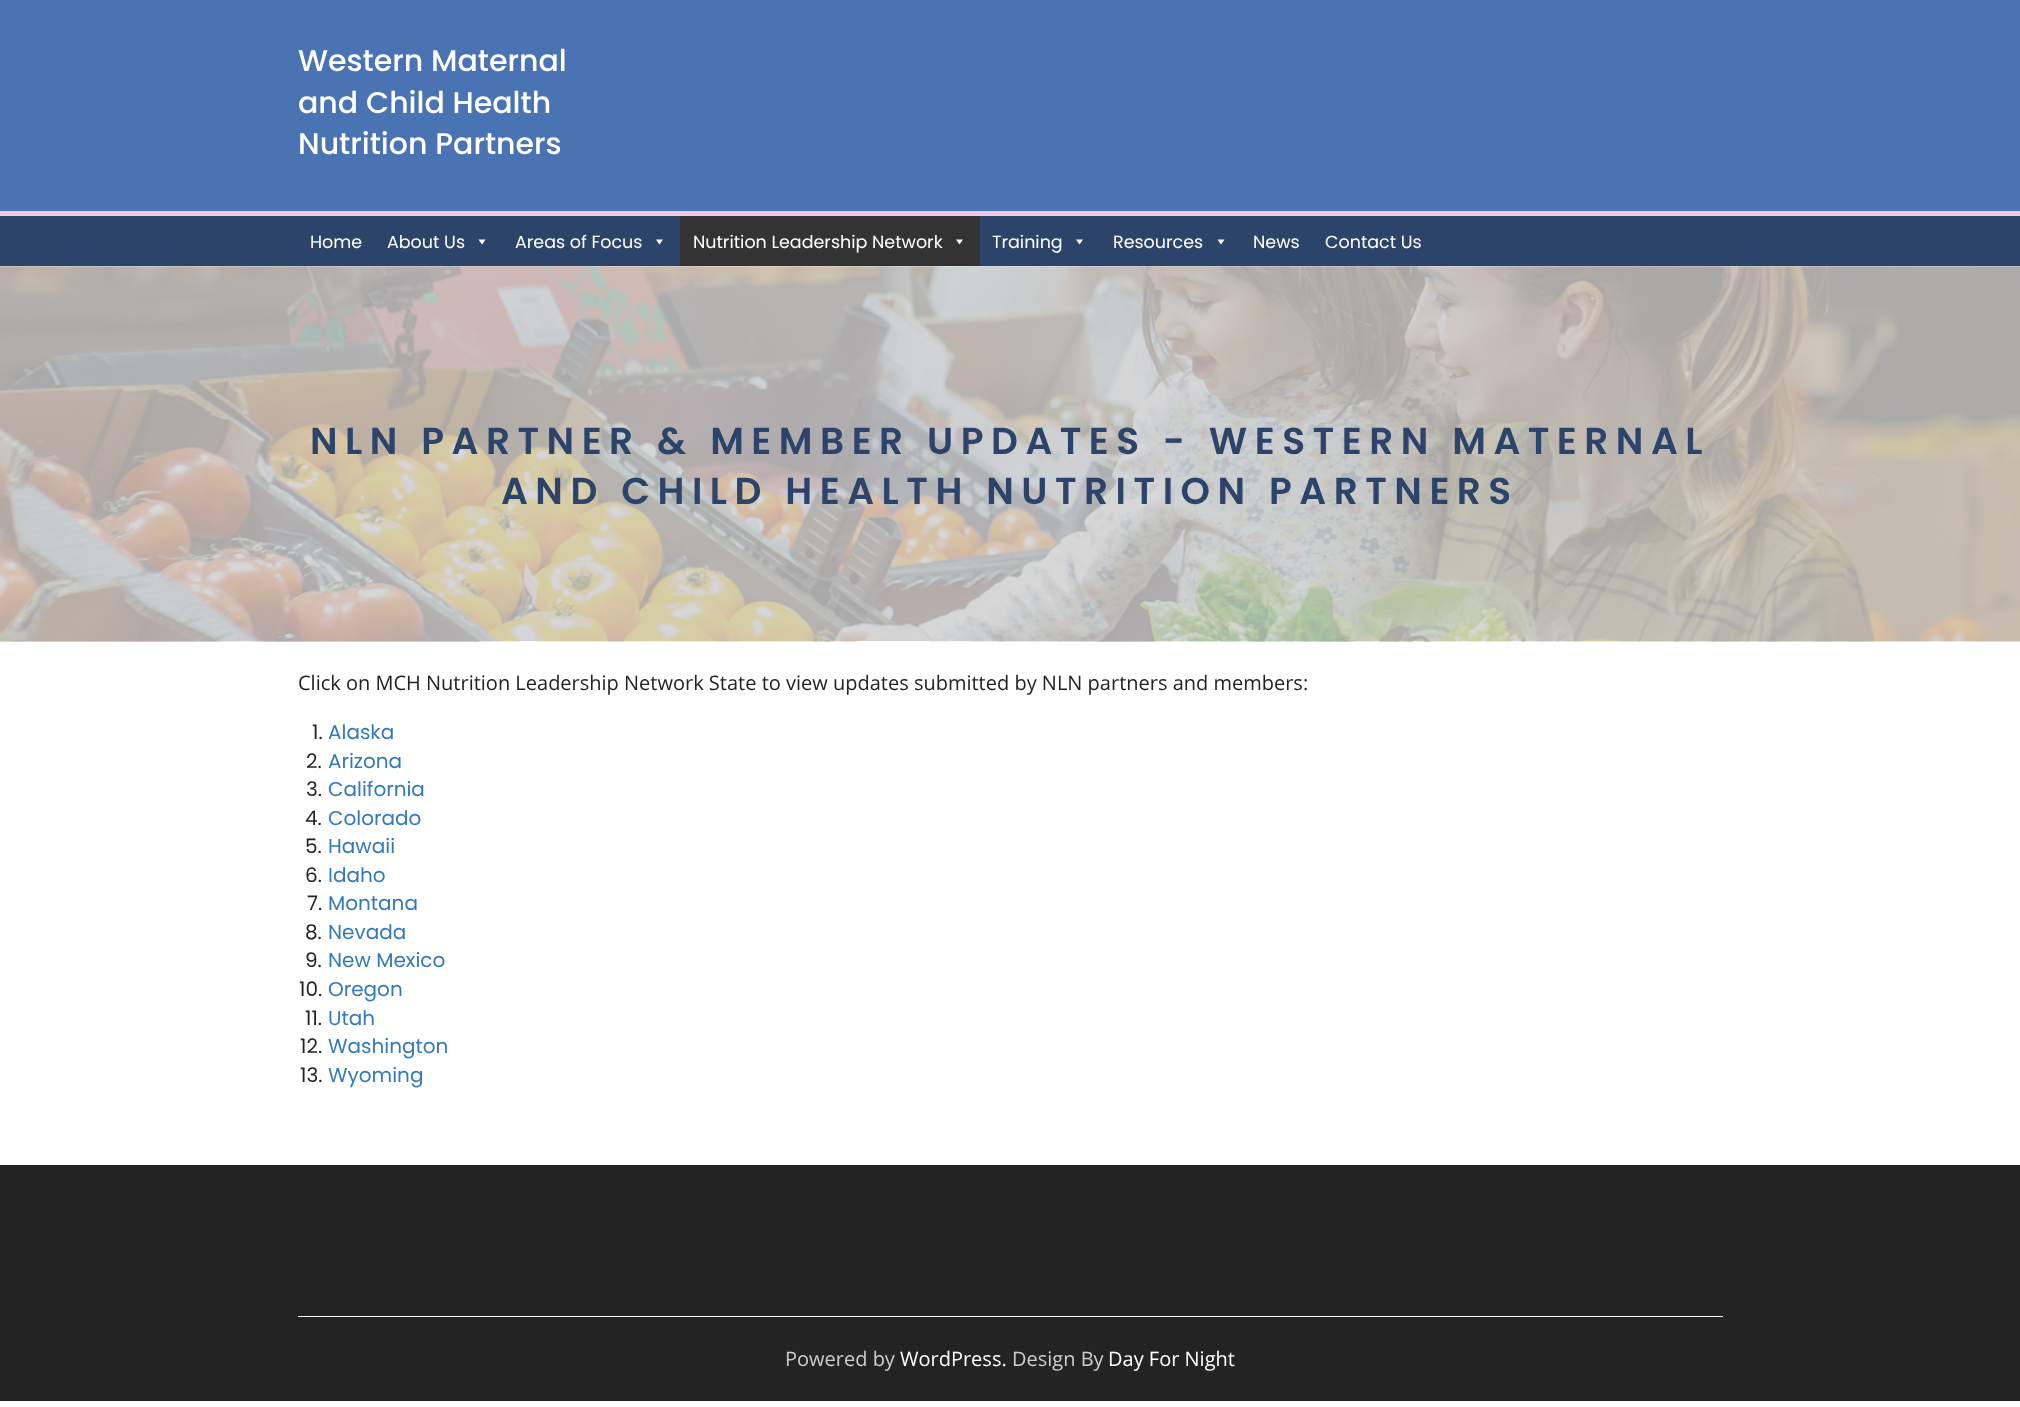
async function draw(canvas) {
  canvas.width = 2020;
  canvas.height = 1407;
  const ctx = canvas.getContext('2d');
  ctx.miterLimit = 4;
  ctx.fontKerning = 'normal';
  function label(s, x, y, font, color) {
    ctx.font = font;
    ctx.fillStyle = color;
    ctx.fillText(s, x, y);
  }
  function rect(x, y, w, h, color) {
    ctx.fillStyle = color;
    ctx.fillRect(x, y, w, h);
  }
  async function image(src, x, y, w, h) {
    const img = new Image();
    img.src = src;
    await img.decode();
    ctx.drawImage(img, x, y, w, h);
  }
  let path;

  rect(0, 0, 2020, 1407, '#fff');
  rect(0, 0, 2020, 211, '#4a73b4');
  rect(0, 211, 2020, 5, '#f2c7e3');
  label('Western Maternal', 298, 71, '500 30px Poppins', '#fff');
  label('and Child Health', 298, 113, '500 30px Poppins', '#fff');
  label('Nutrition Partners', 298, 154, '500 30px Poppins', '#fff');
  rect(0, 216, 2020, 50, '#2c446a');
  label('Home', 310, 248, '17.5px Poppins', '#fff');
  label('About Us', 387, 248, '17.5px Poppins', '#fff');
  path = new Path2D('M485.5 239.5L482 244.5L478.5 239.5Z');
  ctx.fill(path);
  label('Areas of Focus', 515, 248, '17.5px Poppins', '#fff');
  path = new Path2D('M663 239.5L659.5 244.5L656 239.5Z');
  ctx.fill(path);
  rect(680, 216, 300, 50, '#333');
  label('Nutrition Leadership Network', 693, 248, '17.5px Poppins', '#fff');
  path = new Path2D('M963 239.5L959.5 244.5L956 239.5Z');
  ctx.fill(path);
  label('Training', 992, 248, '17.5px Poppins', '#fff');
  path = new Path2D('M1083 239.5L1079.5 244.5L1076 239.5Z');
  ctx.fill(path);
  label('Resources', 1113, 248, '17.5px Poppins', '#fff');
  path = new Path2D('M1224.5 239.5L1221 244.5L1217.5 239.5Z');
  ctx.fill(path);
  label('News', 1253, 248, '17.5px Poppins', '#fff');
  label('Contact Us', 1325, 248, '17.5px Poppins', '#fff');
  await image('assets/img1.png', 0, 266, 2020, 376);
  ctx.letterSpacing = '7.5px';
  label('NLN PARTNER & MEMBER UPDATES - WESTERN MATERNAL', 310, 454, '600 37.5px Poppins', '#2c446a');
  label('AND CHILD HEALTH NUTRITION PARTNERS', 501, 504, '600 37.5px Poppins', '#2c446a');
  ctx.letterSpacing = '0px';
  label('Click on MCH Nutrition Leadership Network State to view updates submitted by NLN partners and members:', 298, 690, '20px Open Sans', '#232323');
  label('1.', 312, 739, '20px Poppins', '#232323');
  label('Alaska', 328, 739, '20px Poppins', '#337ab7');
  label('2.', 306, 768, '20px Poppins', '#232323');
  label('Arizona', 328, 768, '20px Poppins', '#337ab7');
  label('3.', 306, 796, '20px Poppins', '#232323');
  label('California', 328, 796, '20px Poppins', '#337ab7');
  label('4.', 305, 825, '20px Poppins', '#232323');
  label('Colorado', 328, 825, '20px Poppins', '#337ab7');
  label('5.', 305, 853, '20px Poppins', '#232323');
  label('Hawaii', 328, 853, '20px Poppins', '#337ab7');
  label('6.', 305, 882, '20px Poppins', '#232323');
  label('Idaho', 328, 882, '20px Poppins', '#337ab7');
  label('7.', 307, 910, '20px Poppins', '#232323');
  label('Montana', 328, 910, '20px Poppins', '#337ab7');
  label('8.', 305, 939, '20px Poppins', '#232323');
  label('Nevada', 328, 939, '20px Poppins', '#337ab7');
  label('9.', 305, 967, '20px Poppins', '#232323');
  label('New Mexico', 328, 967, '20px Poppins', '#337ab7');
  label('10.', 299, 996, '20px Poppins', '#232323');
  label('Oregon', 328, 996, '20px Poppins', '#337ab7');
  label('11.', 305, 1025, '20px Poppins', '#232323');
  label('Utah', 328, 1025, '20px Poppins', '#337ab7');
  label('12.', 300, 1053, '20px Poppins', '#232323');
  label('Washington', 328, 1053, '20px Poppins', '#337ab7');
  label('13.', 300, 1082, '20px Poppins', '#232323');
  label('Wyoming', 328, 1082, '20px Poppins', '#337ab7');
  rect(0, 1165, 2020, 236, '#232323');
  rect(298, 1316, 1425, 1, '#fff');
  label('Powered by', 785, 1366, '20px Open Sans', '#cdcdcd');
  label('WordPress.', 900, 1366, '20px Open Sans', '#fff');
  label('Design By', 1012, 1366, '20px Open Sans', '#cdcdcd');
  label('Day For Night', 1108, 1366, '20px Open Sans', '#fff');
}

draw(document.querySelector('canvas'));
